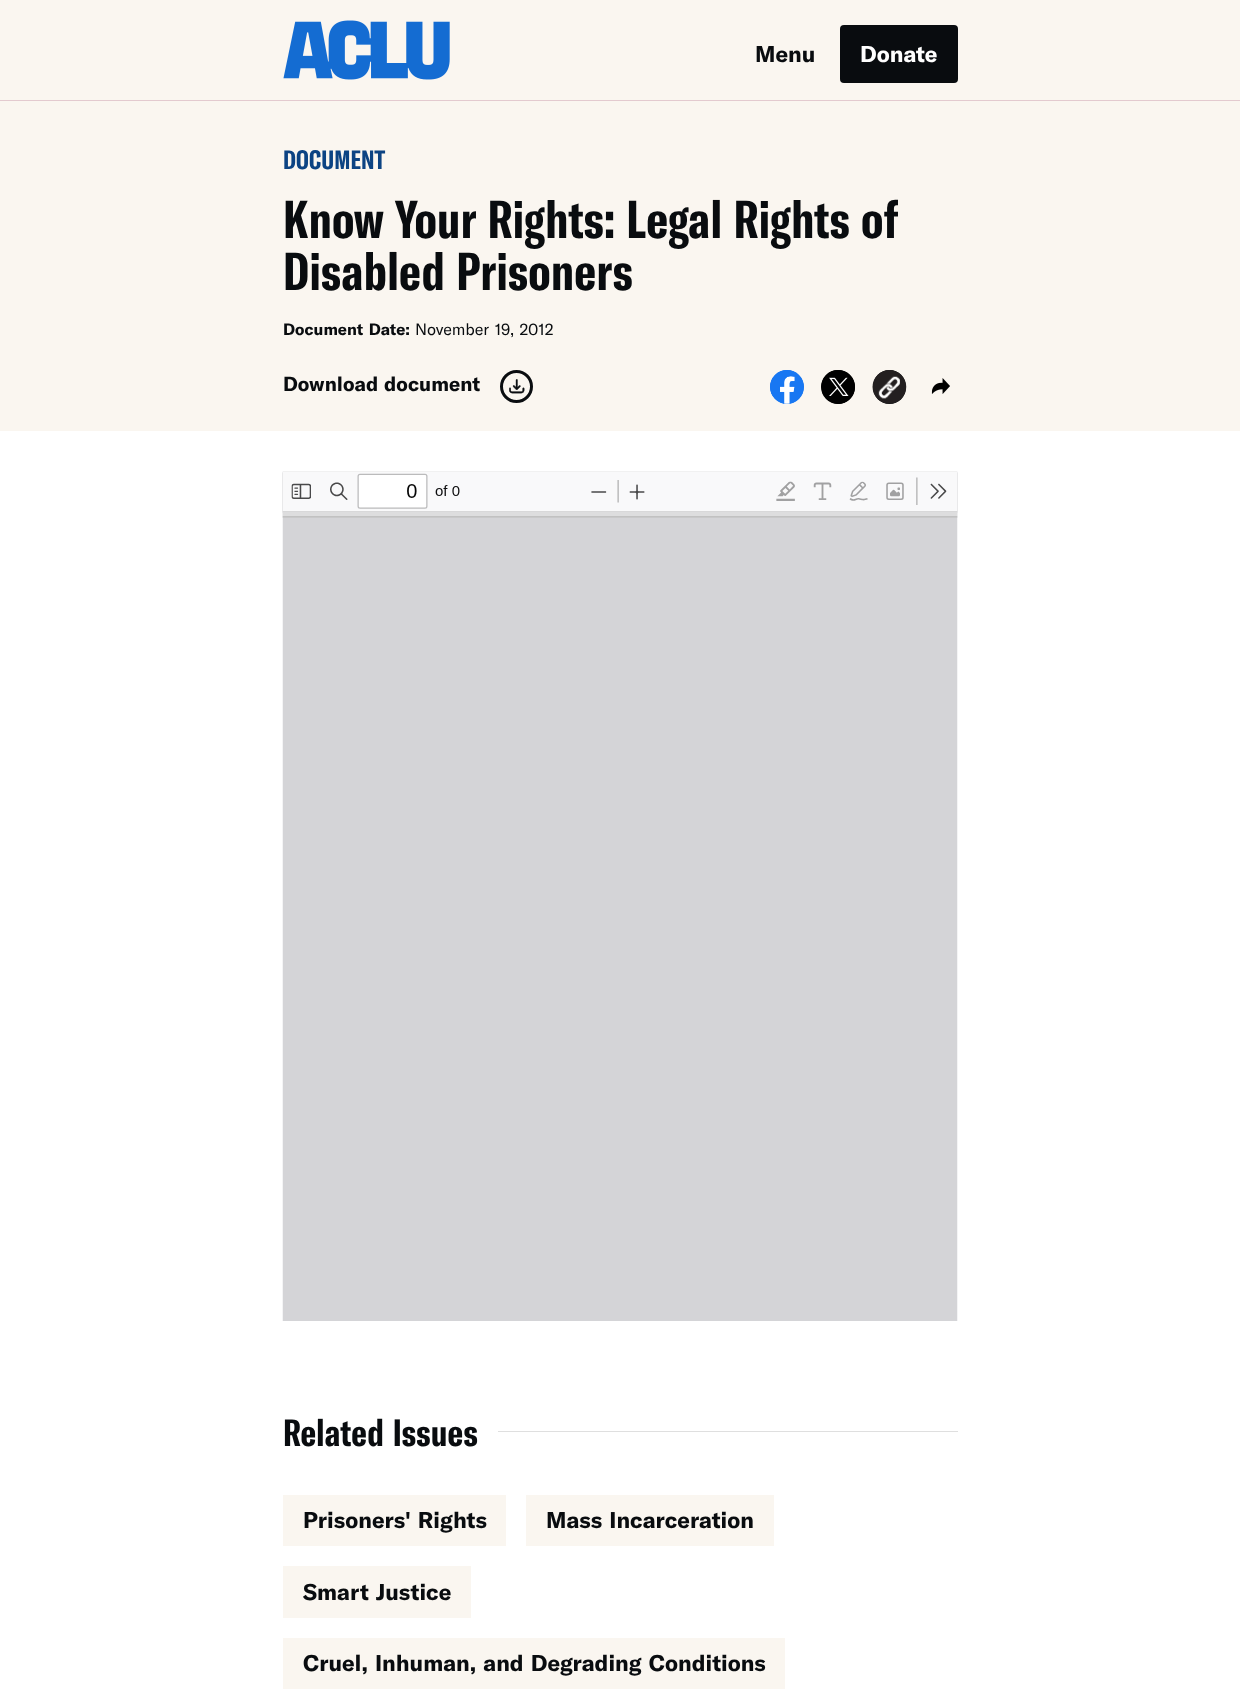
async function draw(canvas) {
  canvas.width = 1240;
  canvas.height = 1701;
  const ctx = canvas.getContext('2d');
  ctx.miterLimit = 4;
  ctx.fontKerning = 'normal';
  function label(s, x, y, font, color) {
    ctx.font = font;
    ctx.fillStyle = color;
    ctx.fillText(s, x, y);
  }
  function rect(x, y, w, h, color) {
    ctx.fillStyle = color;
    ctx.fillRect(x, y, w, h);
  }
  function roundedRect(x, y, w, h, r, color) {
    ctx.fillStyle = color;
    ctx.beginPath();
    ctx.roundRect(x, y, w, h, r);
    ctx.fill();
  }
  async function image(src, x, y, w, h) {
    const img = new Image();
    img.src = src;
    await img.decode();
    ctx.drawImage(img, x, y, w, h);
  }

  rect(0, 0, 1240, 1701, '#faf6f0');
  rect(0, 100, 1240, 1, '#e3cacf');
  await image('assets/img1.png', 283, 20, 167, 60);
  label('Menu', 755, 62, 'bold 22.5px GT America', '#090c0f');
  roundedRect(840, 25, 118, 58, 4, '#090c0f');
  label('Donate', 860, 62, 'bold 22.5px GT America', '#fff');
  ctx.letterSpacing = '0.1px';
  label('DOCUMENT', 283, 169, 'bold 26px "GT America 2"', '#0c4383');
  ctx.wordSpacing = '2.25px';
  label('Know Your Rights: Legal Rights of', 283, 238, 'bold 52.5px "GT America 2"', '#090c0f');
  label('Disabled Prisoners', 283, 290, 'bold 52.5px "GT America 2"', '#090c0f');
  ctx.letterSpacing = '0px';
  ctx.wordSpacing = '1.5px';
  label('Document Date:', 283, 335, 'bold 16.25px GT America', '#090c0f');
  ctx.letterSpacing = '-0.1px';
  label('November 19, 2012', 415, 335, '16.25px GT America', '#090c0f');
  ctx.letterSpacing = '0px';
  ctx.wordSpacing = '0px';
  label('Download', 283, 391, 'bold 20px GT America', '#090c0f');
  label('document', 384, 391, 'bold 20px GT America', '#090c0f');
  await image('assets/img2.png', 509, 379, 16, 15);
  ctx.beginPath();
  ctx.arc(516.5, 386.5, 15, 0, 2 * Math.PI);
  ctx.strokeStyle = '#0a0d10';
  ctx.lineWidth = 3;
  ctx.stroke();
  ctx.fillStyle = '#1877f2';
  ctx.beginPath();
  ctx.arc(787, 387, 17, 0, 2 * Math.PI);
  ctx.fill();
  await image('assets/img3.png', 770, 370, 34, 34);
  ctx.fillStyle = '#000';
  ctx.beginPath();
  ctx.arc(838, 387, 17, 0, 2 * Math.PI);
  ctx.fill();
  await image('assets/img4.png', 821, 370, 34, 34);
  roundedRect(873, 370, 33, 34, 16.5, '#090c0f');
  await image('assets/img5.png', 872, 370, 35, 34);
  await image('assets/img6.png', 931, 378, 19, 16);
  rect(0, 431, 1240, 1270, '#fff');
  await image('assets/img7.png', 282, 471, 676, 850);
  ctx.letterSpacing = '0.1px';
  ctx.wordSpacing = '2.25px';
  label('Related Issues', 283, 1446, 'bold 37.5px "GT America 2"', '#090c0f');
  rect(498, 1431, 460, 1, '#dfdfdf');
  rect(283, 1495, 223, 51, '#faf6f0');
  ctx.letterSpacing = '0px';
  ctx.wordSpacing = '1.5px';
  label('Prisoners\' Rights', 303, 1528, 'bold 22.5px GT America', '#090c0f');
  rect(526, 1495, 248, 51, '#faf6f0');
  label('Mass Incarceration', 546, 1528, 'bold 22.5px GT America', '#090c0f');
  rect(283, 1566, 188, 52, '#faf6f0');
  label('Smart Justice', 303, 1600, 'bold 22.5px GT America', '#090c0f');
  rect(283, 1638, 502, 51, '#faf6f0');
  label('Cruel, Inhuman, and Degrading Conditions', 303, 1671, 'bold 22.5px GT America', '#090c0f');
}

draw(document.querySelector('canvas'));
